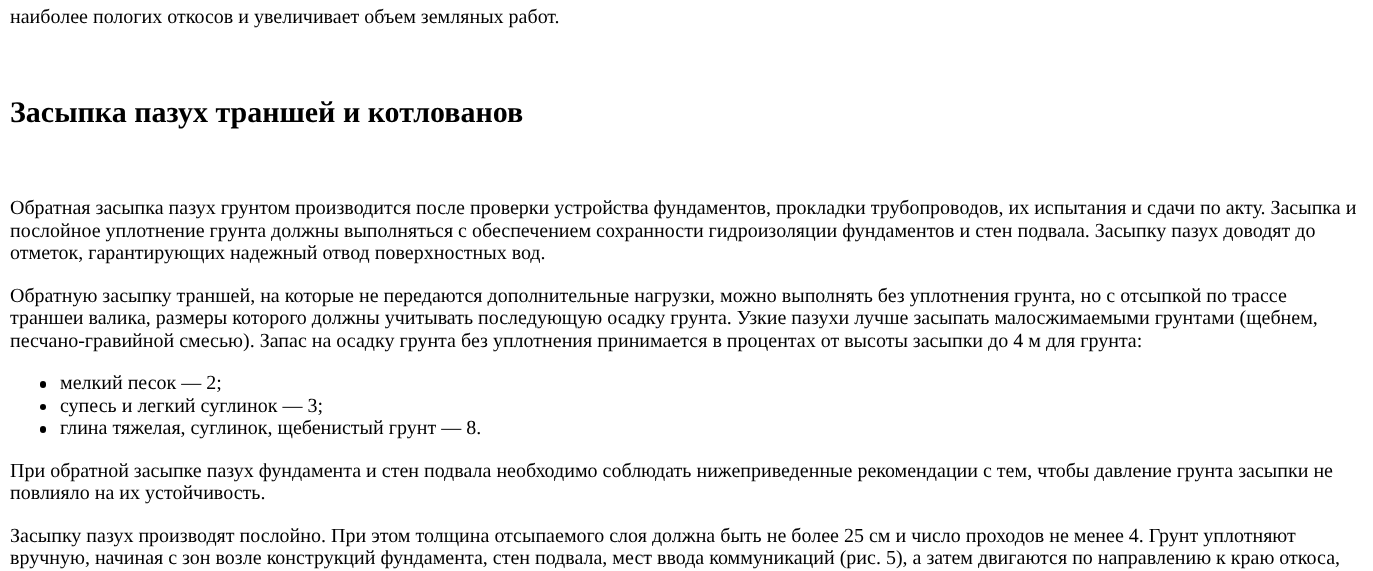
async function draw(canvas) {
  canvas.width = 1373;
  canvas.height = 571;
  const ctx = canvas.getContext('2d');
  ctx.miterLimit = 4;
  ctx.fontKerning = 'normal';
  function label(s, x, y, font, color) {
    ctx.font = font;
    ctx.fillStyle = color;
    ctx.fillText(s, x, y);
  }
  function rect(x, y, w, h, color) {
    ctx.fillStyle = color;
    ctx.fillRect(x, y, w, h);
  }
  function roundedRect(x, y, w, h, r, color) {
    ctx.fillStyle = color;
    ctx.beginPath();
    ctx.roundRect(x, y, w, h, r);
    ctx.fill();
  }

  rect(0, 0, 1373, 571, '#fff');
  label('наиболее пологих откосов и увеличивает объем земляных работ.', 10, 23, '20px Liberation Serif', '#000');
  label('Засыпка пазух траншей и котлованов', 10, 122, 'bold 30px Liberation Serif', '#000');
  label('Обратная засыпка пазух грунтом производится после проверки устройства фундаментов, прокладки трубопроводов, их испытания и сдачи по акту. Засыпка и', 10, 214, '20px Liberation Serif', '#000');
  label('послойное уплотнение грунта должны выполняться с обеспечением сохранности гидроизоляции фундаментов и стен подвала. Засыпку пазух доводят до', 10, 237, '20px Liberation Serif', '#000');
  label('отметок, гарантирующих надежный отвод поверхностных вод.', 10, 259, '20px Liberation Serif', '#000');
  label('Обратную засыпку траншей, на которые не передаются дополнительные нагрузки, можно выполнять без уплотнения грунта, но с отсыпкой по трассе', 10, 302, '20px Liberation Serif', '#000');
  label('траншеи валика, размеры которого должны учитывать последующую осадку грунта. Узкие пазухи лучше засыпать малосжимаемыми грунтами (щебнем,', 10, 324, '20px Liberation Serif', '#000');
  label('песчано-гравийной смесью). Запас на осадку грунта без уплотнения принимается в процентах от высоты засыпки до 4 м для грунта:', 10, 347, '20px Liberation Serif', '#000');
  roundedRect(40, 381, 6, 7, 3, '#000');
  label('мелкий песок — 2;', 60, 389, '20px Liberation Serif', '#000');
  ctx.beginPath();
  ctx.arc(43, 407, 3, 0, 2 * Math.PI);
  ctx.fill();
  label('супесь и легкий суглинок — 3;', 60, 412, '20px Liberation Serif', '#000');
  roundedRect(40, 426, 6, 7, 3, '#000');
  label('глина тяжелая, суглинок, щебенистый грунт — 8.', 60, 434, '20px Liberation Serif', '#000');
  label('При обратной засыпке пазух фундамента и стен подвала необходимо соблюдать нижеприведенные рекомендации с тем, чтобы давление грунта засыпки не', 10, 477, '20px Liberation Serif', '#000');
  label('повлияло на их устойчивость.', 10, 499, '20px Liberation Serif', '#000');
  label('Засыпку пазух производят послойно. При этом толщина отсыпаемого слоя должна быть не более 25 см и число проходов не менее 4. Грунт уплотняют', 10, 542, '20px Liberation Serif', '#000');
  label('вручную, начиная с зон возле конструкций фундамента, стен подвала, мест ввода коммуникаций (рис. 5), а затем двигаются по направлению к краю откоса,', 10, 564, '20px Liberation Serif', '#000');
}

draw(document.querySelector('canvas'));
